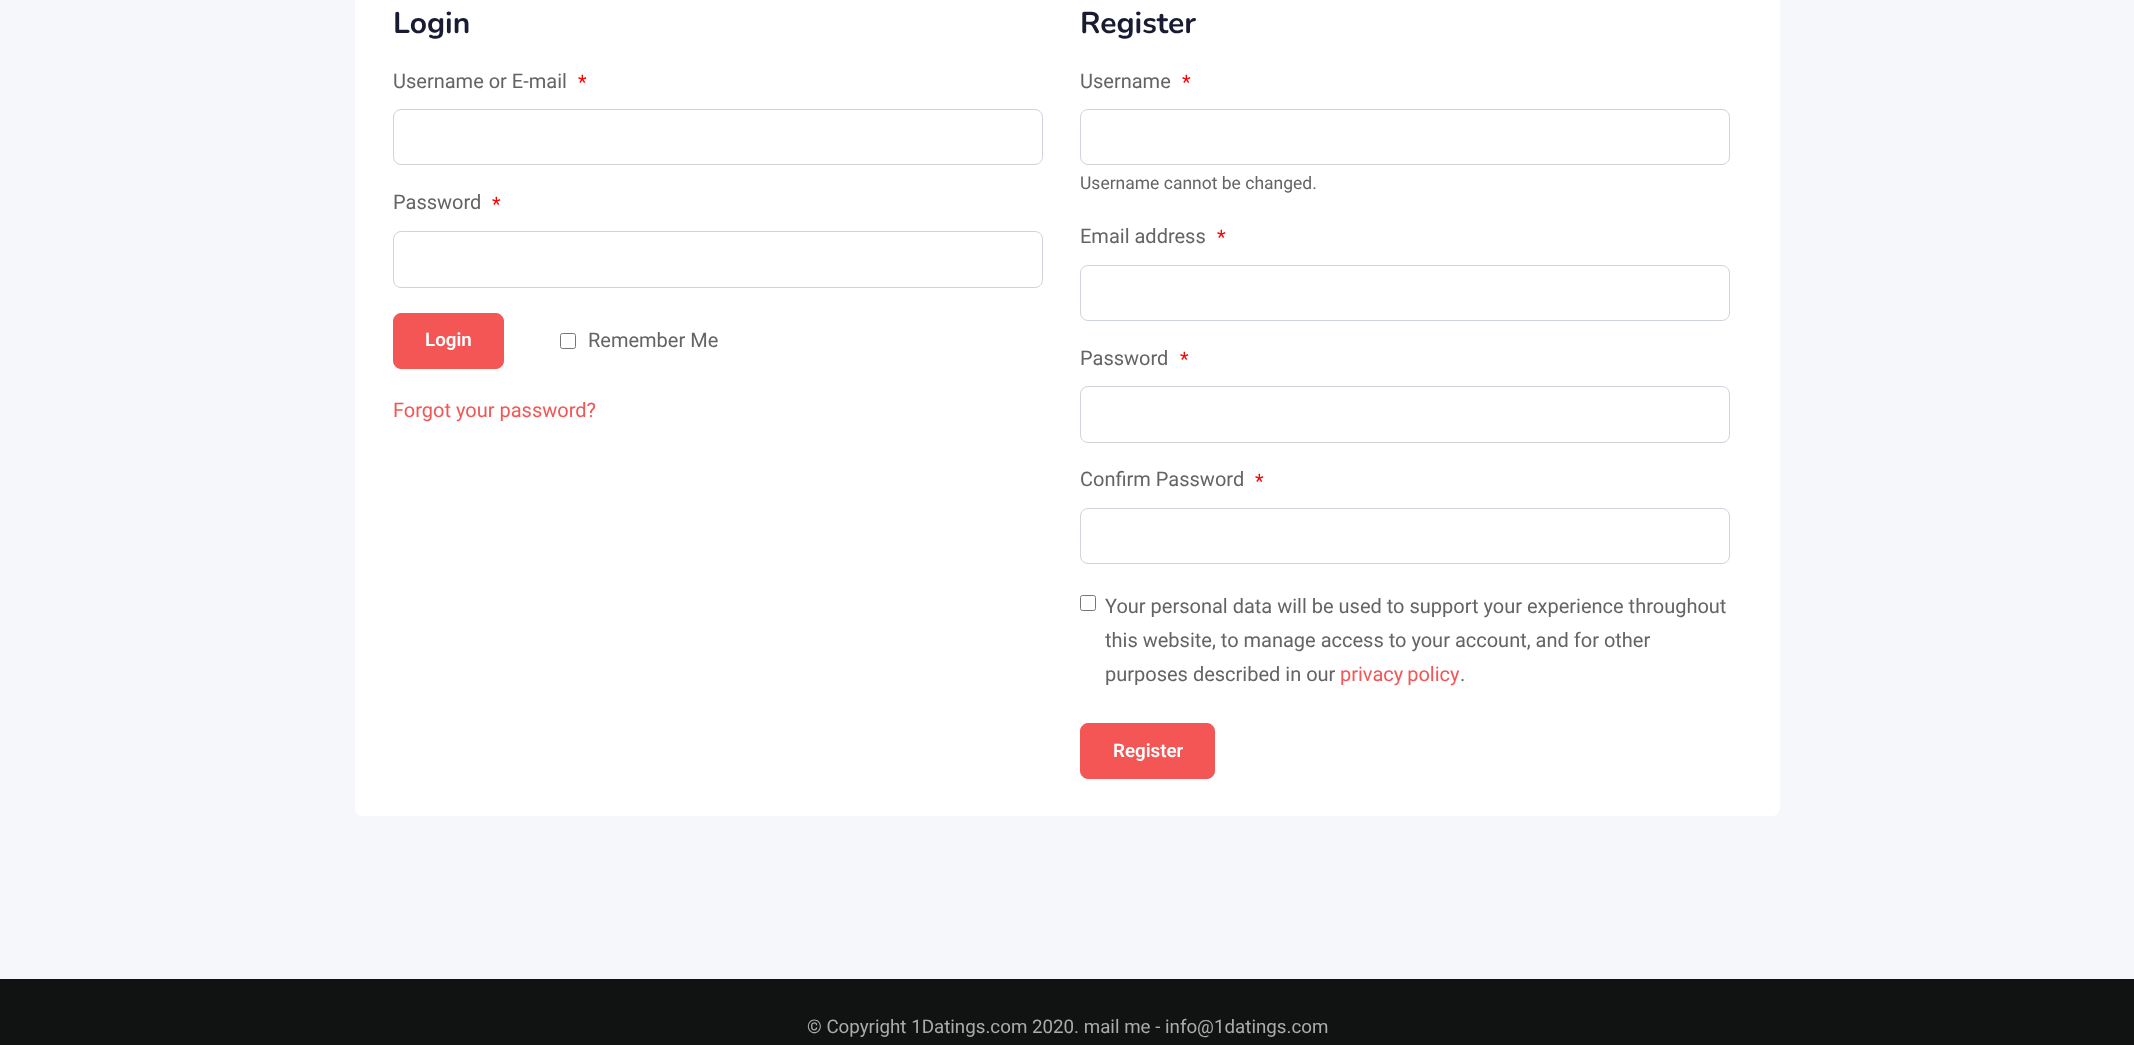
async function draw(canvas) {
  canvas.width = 2134;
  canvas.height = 1045;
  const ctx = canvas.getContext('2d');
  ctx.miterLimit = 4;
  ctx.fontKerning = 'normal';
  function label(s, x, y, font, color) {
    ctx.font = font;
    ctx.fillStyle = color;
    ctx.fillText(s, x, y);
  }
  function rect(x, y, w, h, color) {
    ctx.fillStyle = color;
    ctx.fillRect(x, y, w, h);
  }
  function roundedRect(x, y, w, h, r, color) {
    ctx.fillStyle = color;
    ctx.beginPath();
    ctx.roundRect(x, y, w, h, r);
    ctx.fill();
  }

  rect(0, 0, 2134, 1045, '#f5f7fa');
  roundedRect(355, -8, 1425, 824, 8, '#fff');
  label('Login', 393, 33, '200 30px Nunito', '#181b31');
  label('Username or E-mail', 393, 88, '20px Roboto', '#646464');
  label('*', 578, 89, '20px Roboto', '#f00');
  ctx.beginPath();
  ctx.roundRect(393.5, 109.5, 649, 55, 7.5);
  ctx.strokeStyle = '#ced4da';
  ctx.stroke();
  label('Password', 393, 209, '20px Roboto', '#646464');
  label('*', 492, 211, '20px Roboto', '#f00');
  ctx.beginPath();
  ctx.roundRect(393.5, 231.5, 649, 56, 7.5);
  ctx.stroke();
  ctx.fillStyle = '#f45555';
  ctx.beginPath();
  ctx.roundRect(393.5, 313.5, 110, 55, 7.5);
  ctx.fill();
  ctx.strokeStyle = '#f45555';
  ctx.stroke();
  label('Login', 425, 346, '600 18.75px Roboto', '#fff');
  ctx.beginPath();
  ctx.roundRect(560.5, 333.5, 15, 15, 2);
  ctx.strokeStyle = '#767676';
  ctx.stroke();
  label('Remember Me', 588, 347, '20px Roboto', '#646464');
  label('Forgot your password?', 393, 417, '20px Roboto', '#f45555');
  label('Register', 1080, 33, '200 30px Nunito', '#181b31');
  label('Username', 1080, 88, '20px Roboto', '#646464');
  label('*', 1182, 89, '20px Roboto', '#f00');
  ctx.beginPath();
  ctx.roundRect(1080.5, 109.5, 649, 55, 7.5);
  ctx.strokeStyle = '#ced4da';
  ctx.stroke();
  label('Username cannot be changed.', 1080, 189, '17.5px Roboto', '#646464');
  label('Email address', 1080, 243, '20px Roboto', '#646464');
  label('*', 1217, 244, '20px Roboto', '#f00');
  ctx.beginPath();
  ctx.roundRect(1080.5, 265.5, 649, 55, 7.5);
  ctx.stroke();
  label('Password', 1080, 365, '20px Roboto', '#646464');
  label('*', 1180, 366, '20px Roboto', '#f00');
  ctx.beginPath();
  ctx.roundRect(1080.5, 386.5, 649, 56, 7.5);
  ctx.stroke();
  label('Confirm Password', 1080, 486, '20px Roboto', '#646464');
  label('*', 1255, 488, '20px Roboto', '#f00');
  ctx.beginPath();
  ctx.roundRect(1080.5, 508.5, 649, 55, 7.5);
  ctx.stroke();
  ctx.beginPath();
  ctx.roundRect(1080.5, 595.5, 15, 15, 2);
  ctx.strokeStyle = '#767676';
  ctx.stroke();
  label('Your personal data will be used to support your experience throughout', 1105, 613, '20px Roboto', '#646464');
  label('this website, to manage access to your account, and for other', 1105, 647, '20px Roboto', '#646464');
  label('purposes described in our', 1105, 681, '20px Roboto', '#646464');
  ctx.wordSpacing = '-1px';
  label('privacy policy', 1340, 681, '20px Roboto', '#f45555');
  ctx.wordSpacing = '0px';
  label('.', 1460, 681, '20px Roboto', '#646464');
  ctx.fillStyle = '#f45555';
  ctx.beginPath();
  ctx.roundRect(1080.5, 723.5, 134, 55, 7.5);
  ctx.fill();
  ctx.strokeStyle = '#f45555';
  ctx.stroke();
  label('Register', 1113, 757, '600 18.75px Roboto', '#fff');
  rect(0, 979, 2134, 66, '#111212');
  label('© Copyright 1Datings.com 2020. mail me - info@1datings.com', 807, 1033, '18.75px Roboto', '#ababab');
}

draw(document.querySelector('canvas'));
